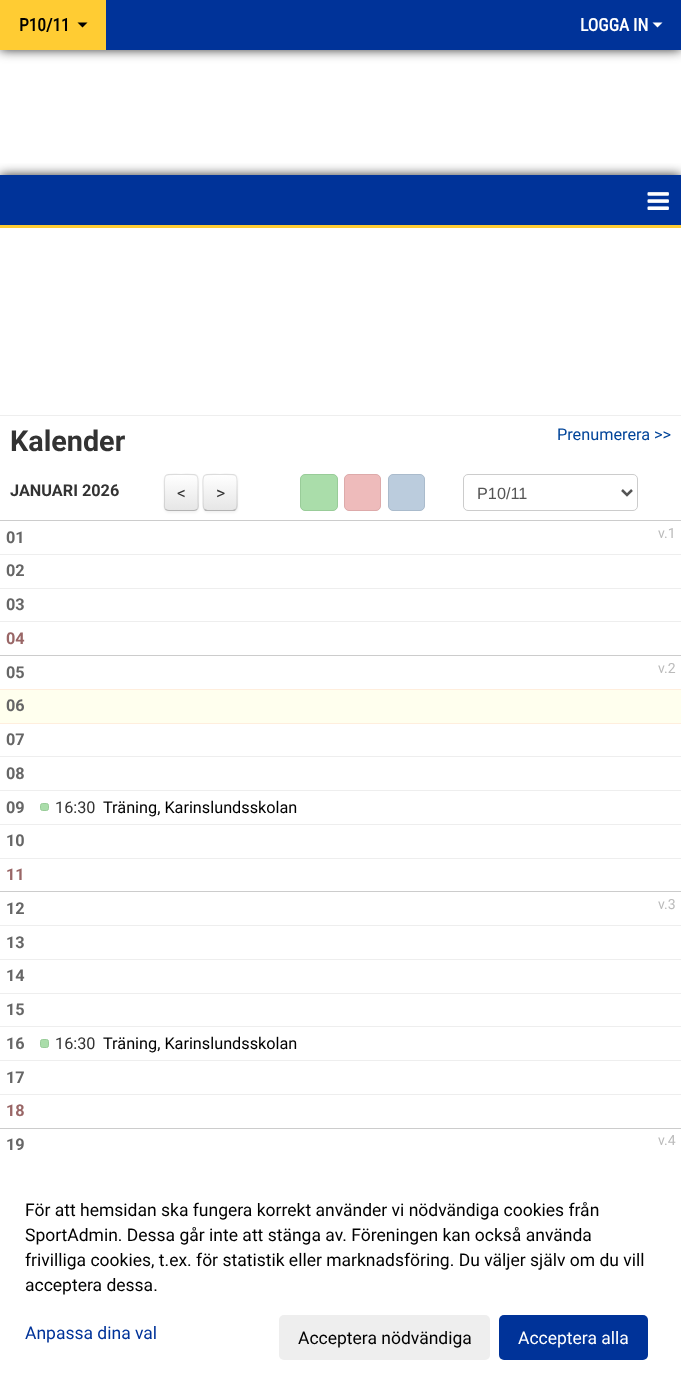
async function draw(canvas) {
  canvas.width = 681;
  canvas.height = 1385;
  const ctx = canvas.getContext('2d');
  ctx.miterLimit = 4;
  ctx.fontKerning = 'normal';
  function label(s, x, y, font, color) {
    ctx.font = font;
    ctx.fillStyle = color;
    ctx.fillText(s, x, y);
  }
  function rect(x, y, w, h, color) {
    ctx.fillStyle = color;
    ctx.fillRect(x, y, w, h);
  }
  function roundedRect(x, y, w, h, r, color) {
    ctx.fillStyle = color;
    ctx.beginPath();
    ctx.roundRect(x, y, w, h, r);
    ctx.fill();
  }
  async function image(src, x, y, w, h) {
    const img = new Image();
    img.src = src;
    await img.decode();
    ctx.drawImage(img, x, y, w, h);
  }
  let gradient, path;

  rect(0, 0, 681, 1385, '#fff');
  ctx.fillStyle = '#333';
  ctx.filter = 'blur(6px)';
  ctx.beginPath();
  ctx.rect(0, 0, 681, 50);
  ctx.fill();
  ctx.filter = 'none';
  rect(106, 0, 575, 50, '#039');
  rect(0, 0, 106, 50, '#fc3');
  label('P10/11', 19, 31, 'bold 17.5px Roboto Condensed', '#000');
  path = new Path2D('M77.5 22.5H87.5L82.5 27.5Z');
  ctx.fill(path);
  label('LOGGA IN', 580, 31, 'bold 17.5px Roboto Condensed', '#fff');
  path = new Path2D('M652.5 22.5H662.5L657.5 27.5Z');
  ctx.fill(path);
  ctx.save();
  ctx.beginPath();
  ctx.rect(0, 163, 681, 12);
  ctx.clip();
  ctx.fillStyle = '#333';
  ctx.filter = 'blur(6px)';
  ctx.beginPath();
  ctx.rect(0, 175, 681, 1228);
  ctx.fill();
  ctx.filter = 'none';
  ctx.restore();
  rect(0, 175, 681, 50, '#039');
  rect(0, 225, 681, 3, '#fc3');
  await image('assets/img1.png', 647, 192, 22, 18);
  rect(0, 415, 681, 1, '#eee');
  label('Kalender', 10, 451, 'bold 28.75px Roboto', '#333');
  label('Prenumerera >>', 557, 440, '16.25px Roboto', '#049');
  label('JANUARI 2026', 10, 496, 'bold 16.25px Roboto', '#333');
  ctx.fillStyle = '#0000000d';
  ctx.filter = 'blur(1px)';
  ctx.beginPath();
  ctx.roundRect(164, 475, 35, 38, 5);
  ctx.fill();
  ctx.filter = 'none';
  roundedRect(164, 474, 35, 37, 5, '#f5f5f5');
  ctx.save();
  ctx.beginPath();
  ctx.roundRect(164, 474, 35, 37, 5);
  ctx.clip();
  gradient = ctx.createLinearGradient(181, 475, 181, 510);
  gradient.addColorStop(0, '#fff');
  gradient.addColorStop(1, '#e6e6e6');
  ctx.fillStyle = gradient;
  ctx.fillRect(164, 475, 35, 35);
  ctx.restore();
  path = new Path2D('M197 509.5C196 510 195 510.5 194 510.5H169C167.5 510.5 166.5 510 165.5 509.5');
  ctx.strokeStyle = '#b3b3b3';
  ctx.lineWidth = 1.2;
  ctx.stroke(path);
  path = new Path2D('M165.5 509.5C163.5 507.5 164.5 504 164.5 501.5V492.5C164.5 472.5 161.5 474.5 181 474.5C201 474.5 198 472.5 198 492.5V501.5C198 504 199 507.5 197 509.5');
  ctx.strokeStyle = '#0000001a';
  ctx.stroke(path);
  label('<', 177, 499, '17.5px Roboto', '#333');
  ctx.fillStyle = '#0000000d';
  ctx.filter = 'blur(1px)';
  ctx.beginPath();
  ctx.roundRect(203, 475, 35, 38, 5);
  ctx.fill();
  ctx.filter = 'none';
  roundedRect(203, 474, 35, 37, 5, '#f5f5f5');
  ctx.save();
  ctx.beginPath();
  ctx.roundRect(203, 474, 35, 37, 5);
  ctx.clip();
  gradient = ctx.createLinearGradient(220, 475, 220, 510);
  gradient.addColorStop(0, '#fff');
  gradient.addColorStop(1, '#e6e6e6');
  ctx.fillStyle = gradient;
  ctx.fillRect(203, 475, 35, 35);
  ctx.restore();
  path = new Path2D('M235.5 509.5C235 510 233.5 510.5 232.5 510.5H207.5C206.5 510.5 205 510 204.5 509.5');
  ctx.strokeStyle = '#b3b3b3';
  ctx.stroke(path);
  path = new Path2D('M204.5 509.5C202.5 507.5 203 504 203 501.5V492.5C203 472.5 200 474.5 220 474.5C240 474.5 237 472.5 237 492.5V501.5C237 504 237.5 507.5 235.5 509.5');
  ctx.strokeStyle = '#0000001a';
  ctx.stroke(path);
  label('>', 216, 499, '17.5px Roboto', '#333');
  ctx.fillStyle = '#ada';
  ctx.beginPath();
  ctx.roundRect(300.5, 474.5, 37, 36, 4.5);
  ctx.fill();
  ctx.strokeStyle = '#9c9';
  ctx.lineWidth = 1;
  ctx.stroke();
  ctx.fillStyle = '#ebb';
  ctx.beginPath();
  ctx.roundRect(344.5, 474.5, 36, 36, 4.5);
  ctx.fill();
  ctx.strokeStyle = '#daa';
  ctx.stroke();
  ctx.fillStyle = '#bcd';
  ctx.beginPath();
  ctx.roundRect(388.5, 474.5, 36, 36, 4.5);
  ctx.fill();
  ctx.strokeStyle = '#abc';
  ctx.stroke();
  ctx.beginPath();
  ctx.roundRect(463.5, 474.5, 174, 36, 4.5);
  ctx.strokeStyle = '#ccc';
  ctx.stroke();
  path = new Path2D('M622 490L627 495L632 490');
  ctx.strokeStyle = '#555';
  ctx.lineWidth = 2.5;
  ctx.stroke(path);
  label('P10/11', 477, 499, '16.25px Liberation Sans', '#555');
  rect(0, 554, 681, 1, '#eee');
  label('01', 6, 543, 'bold 16.25px Roboto', '#666');
  rect(0, 588, 681, 1, '#eee');
  label('02', 6, 576, 'bold 16.25px Roboto', '#666');
  rect(0, 621, 681, 1, '#eee');
  label('03', 6, 610, 'bold 16.25px Roboto', '#666');
  label('04', 6, 644, 'bold 16.25px Roboto', '#966');
  rect(0, 520, 681, 1, '#ccc');
  label('v.1', 658, 538, '14px Roboto', '#bbb');
  rect(0, 689, 681, 1, '#fed');
  label('05', 6, 678, 'bold 16.25px Roboto', '#666');
  rect(0, 690, 681, 33, '#ffe');
  rect(0, 723, 681, 1, '#fed');
  label('06', 6, 711, 'bold 16.25px Roboto', '#666');
  rect(0, 756, 681, 1, '#eee');
  label('07', 6, 745, 'bold 16.25px Roboto', '#666');
  rect(0, 790, 681, 1, '#eee');
  label('08', 6, 779, 'bold 16.25px Roboto', '#666');
  rect(0, 824, 681, 1, '#eee');
  label('09', 6, 813, 'bold 16.25px Roboto', '#666');
  ctx.fillStyle = '#ada';
  ctx.beginPath();
  ctx.roundRect(40.5, 803.5, 8, 7, 2);
  ctx.fill();
  ctx.strokeStyle = '#9c9';
  ctx.lineWidth = 1;
  ctx.stroke();
  label('16:30', 55, 813, '16.25px Roboto', '#333');
  label('Träning, Karinslundsskolan', 103, 813, '16.25px Roboto', '#000');
  rect(0, 858, 681, 1, '#eee');
  label('10', 6, 846, 'bold 16.25px Roboto', '#666');
  label('11', 6, 880, 'bold 16.25px Roboto', '#966');
  rect(0, 655, 681, 1, '#ccc');
  label('v.2', 658, 673, '14px Roboto', '#bbb');
  rect(0, 925, 681, 1, '#eee');
  label('12', 6, 914, 'bold 16.25px Roboto', '#666');
  rect(0, 959, 681, 1, '#eee');
  label('13', 6, 948, 'bold 16.25px Roboto', '#666');
  rect(0, 993, 681, 1, '#eee');
  label('14', 6, 981, 'bold 16.25px Roboto', '#666');
  rect(0, 1026, 681, 1, '#eee');
  label('15', 6, 1015, 'bold 16.25px Roboto', '#666');
  rect(0, 1060, 681, 1, '#eee');
  label('16', 6, 1049, 'bold 16.25px Roboto', '#666');
  ctx.fillStyle = '#ada';
  ctx.beginPath();
  ctx.roundRect(40.5, 1039.5, 8, 8, 2);
  ctx.fill();
  ctx.stroke();
  label('16:30', 55, 1049, '16.25px Roboto', '#333');
  label('Träning, Karinslundsskolan', 103, 1049, '16.25px Roboto', '#000');
  rect(0, 1094, 681, 1, '#eee');
  label('17', 6, 1083, 'bold 16.25px Roboto', '#666');
  label('18', 6, 1116, 'bold 16.25px Roboto', '#966');
  rect(0, 891, 681, 1, '#ccc');
  label('v.3', 658, 909, '14px Roboto', '#bbb');
  label('19', 6, 1150, 'bold 16.25px Roboto', '#666');
  rect(0, 1128, 681, 1, '#ccc');
  label('v.4', 658, 1145, '14px Roboto', '#bbb');
  label('För att hemsidan ska fungera korrekt använder vi nödvändiga cookies från', 25, 1216, '17.5px Roboto', '#000');
  label('SportAdmin. Dessa går inte att stänga av. Föreningen kan också använda', 25, 1241, '17.5px Roboto', '#000');
  label('frivilliga cookies, t.ex. för statistik eller marknadsföring. Du väljer själv om du vill', 25, 1266, '17.5px Roboto', '#000');
  label('acceptera dessa.', 25, 1291, '17.5px Roboto', '#000');
  label('Anpassa dina val', 25, 1339, '17.5px Roboto', '#039');
  roundedRect(279, 1315, 211, 45, 5, '#eee');
  label('Acceptera nödvändiga', 298, 1344, '17.5px Roboto', '#000');
  roundedRect(499, 1315, 149, 45, 5, '#039');
  label('Acceptera alla', 518, 1344, '17.5px Roboto', '#fff');
}

draw(document.querySelector('canvas'));
